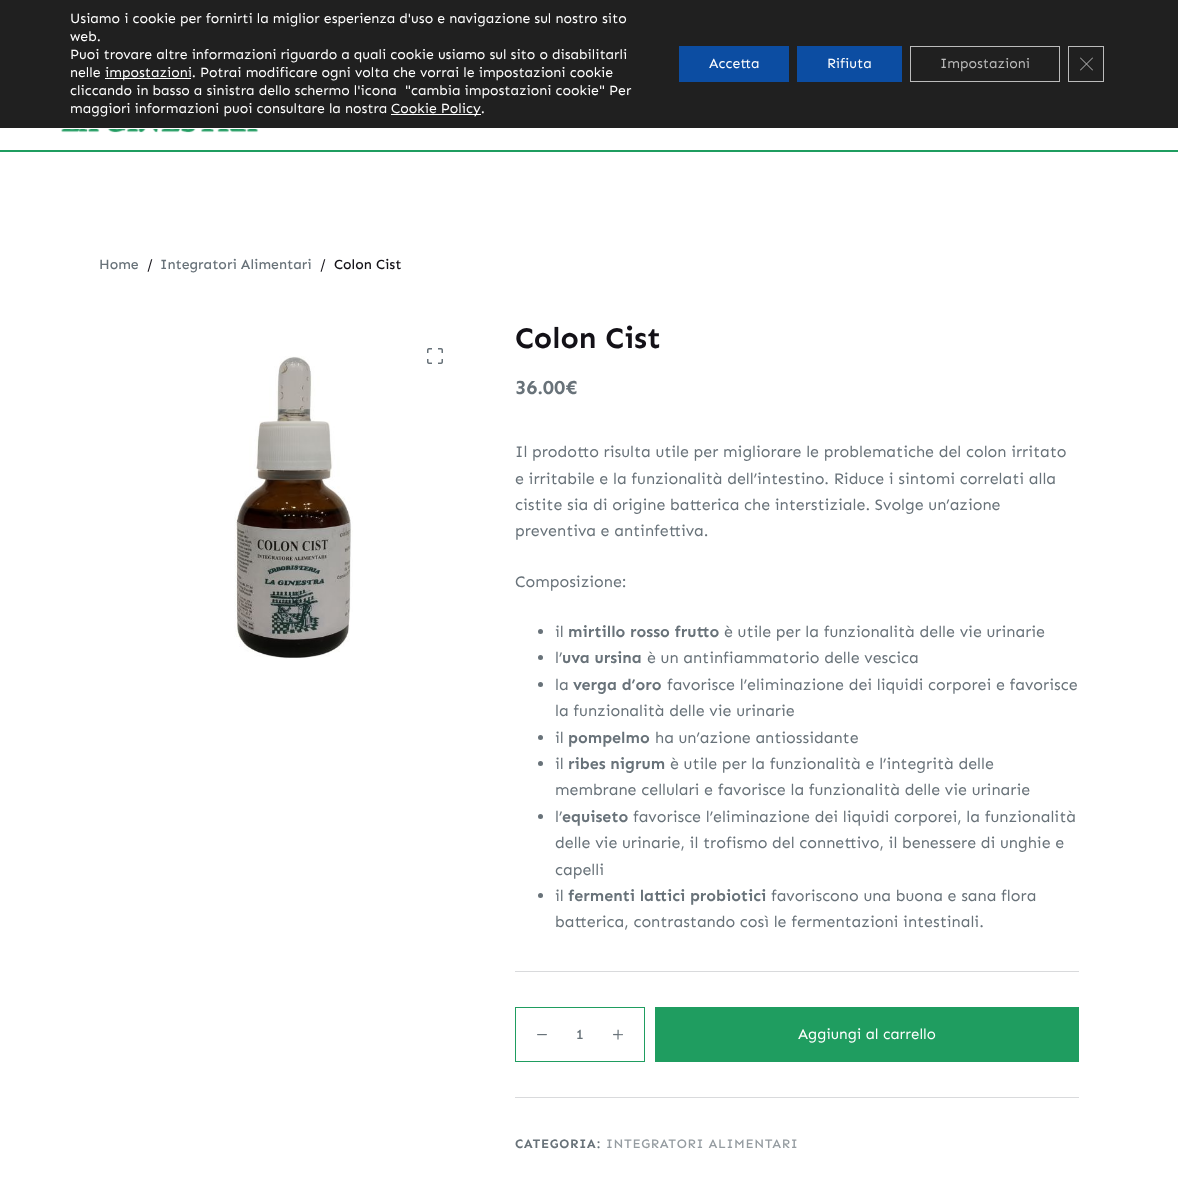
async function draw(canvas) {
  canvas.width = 1178;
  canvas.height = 1198;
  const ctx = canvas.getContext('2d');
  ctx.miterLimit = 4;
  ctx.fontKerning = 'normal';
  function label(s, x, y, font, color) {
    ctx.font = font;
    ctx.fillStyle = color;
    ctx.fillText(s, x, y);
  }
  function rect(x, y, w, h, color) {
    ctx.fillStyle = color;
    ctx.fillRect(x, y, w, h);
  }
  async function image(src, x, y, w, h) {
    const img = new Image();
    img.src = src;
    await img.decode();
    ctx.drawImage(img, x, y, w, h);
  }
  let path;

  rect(0, 0, 1178, 1198, '#fff');
  rect(0, 0, 1178, 128, '#202020');
  label('Usiamo i cookie per fornirti la miglior esperienza d\'uso e navigazione sul nostro sito', 70, 23, '14px Sen', '#fff');
  label('web.', 70, 41, '14px Sen', '#fff');
  label('Puoi trovare altre informazioni riguardo a quali cookie usiamo sul sito o disabilitarli', 70, 59, '14px Sen', '#fff');
  label('nelle', 70, 77, '14px Sen', '#fff');
  rect(105, 78, 86, 1, '#fff');
  label('impostazioni. Potrai modificare ogni volta che vorrai le impostazioni cookie', 105, 77, '14px Sen', '#fff');
  label('cliccando in basso a sinistra dello schermo l\'icona  "cambia impostazioni cookie" Per', 70, 95, '14px Sen', '#fff');
  label('maggiori informazioni puoi consultare la nostra', 70, 113, '14px Sen', '#fff');
  rect(391, 114, 90, 1, '#fff');
  label('Cookie Policy.', 391, 113, '14px Sen', '#fff');
  rect(679, 46, 110, 36, '#0c4da2');
  label('Accetta', 709, 68, '14px Sen', '#fff');
  rect(797, 46, 105, 36, '#0c4da2');
  label('Rifiuta', 827, 68, '14px Sen', '#fff');
  ctx.strokeStyle = '#bcbcbc';
  ctx.strokeRect(910.5, 46.5, 149, 35);
  label('Impostazioni', 940, 68, '14px Sen', '#bcbcbc');
  ctx.strokeRect(1068.5, 46.5, 35, 35);
  path = new Path2D('M1092.5 57.5L1093 58L1080.5 70.5L1080 70Z');
  ctx.fill(path);
  path = new Path2D('M1080 58L1080.5 57.5L1093 70L1092.5 70.5Z');
  ctx.fill(path);
  rect(0, 150, 1178, 2, '#1f9d60');
  await image('assets/img1.png', 61, 129, 198, 4);
  label('Home', 99, 269, '500 14px Sen', '#687279');
  label('/', 147, 269, '500 14px Sen', '#131117');
  label('Integratori Alimentari', 160, 269, '500 14px Sen', '#687279');
  label('/', 320, 269, '500 14px Sen', '#131117');
  label('Colon Cist', 334, 269, '500 14px Sen', '#131117');
  await image('assets/img2.png', 234, 356, 119, 303);
  await image('assets/img3.png', 427, 348, 16, 16);
  label('Colon Cist', 515, 348, 'bold 30px Sen', '#131117');
  label('36.00€', 515, 394, 'bold 20px Sen', '#687279');
  label('Il prodotto risulta utile per migliorare le problematiche del colon irritato', 515, 457, '16px Sen', '#687279');
  label('e irritabile e la funzionalità dell’intestino. Riduce i sintomi correlati alla', 515, 484, '16px Sen', '#687279');
  label('cistite sia di origine batterica che interstiziale. Svolge un’azione', 515, 510, '16px Sen', '#687279');
  label('preventiva e antinfettiva.', 515, 536, '16px Sen', '#687279');
  label('Composizione:', 515, 587, '16px Sen', '#687279');
  ctx.beginPath();
  ctx.arc(540.5, 631.5, 2.5, 0, 2 * Math.PI);
  ctx.fill();
  label('il', 555, 637, '16px Sen', '#687279');
  label('mirtillo rosso frutto', 568, 637, 'bold 16px Sen', '#687279');
  label('è utile per la funzionalità delle vie urinarie', 724, 637, '16px Sen', '#687279');
  ctx.beginPath();
  ctx.arc(540.5, 657.5, 2.5, 0, 2 * Math.PI);
  ctx.fill();
  label('l’', 555, 663, '16px Sen', '#687279');
  label('uva ursina', 562, 663, 'bold 16px Sen', '#687279');
  label('è un antinfiammatorio delle vescica', 647, 663, '16px Sen', '#687279');
  ctx.beginPath();
  ctx.arc(540.5, 684.5, 2.5, 0, 2 * Math.PI);
  ctx.fill();
  label('la', 555, 690, '16px Sen', '#687279');
  label('verga d’oro', 573, 690, 'bold 16px Sen', '#687279');
  label('favorisce l’eliminazione dei liquidi corporei e favorisce', 667, 690, '16px Sen', '#687279');
  label('la funzionalità delle vie urinarie', 555, 716, '16px Sen', '#687279');
  ctx.beginPath();
  ctx.arc(540.5, 737.5, 2.5, 0, 2 * Math.PI);
  ctx.fill();
  label('il', 555, 743, '16px Sen', '#687279');
  label('pompelmo', 568, 743, 'bold 16px Sen', '#687279');
  label('ha un’azione antiossidante', 655, 743, '16px Sen', '#687279');
  ctx.beginPath();
  ctx.arc(540.5, 763.5, 2.5, 0, 2 * Math.PI);
  ctx.fill();
  label('il', 555, 769, '16px Sen', '#687279');
  label('ribes nigrum', 568, 769, 'bold 16px Sen', '#687279');
  label('è utile per la funzionalità e l’integrità delle', 670, 769, '16px Sen', '#687279');
  label('membrane cellulari e favorisce la funzionalità delle vie urinarie', 555, 795, '16px Sen', '#687279');
  ctx.beginPath();
  ctx.arc(540.5, 816.5, 2.5, 0, 2 * Math.PI);
  ctx.fill();
  label('l’', 555, 822, '16px Sen', '#687279');
  label('equiseto', 562, 822, 'bold 16px Sen', '#687279');
  label('favorisce l’eliminazione dei liquidi corporei, la funzionalità', 633, 822, '16px Sen', '#687279');
  label('delle vie urinarie, il trofismo del connettivo, il benessere di unghie e', 555, 848, '16px Sen', '#687279');
  label('capelli', 555, 875, '16px Sen', '#687279');
  ctx.beginPath();
  ctx.arc(540.5, 895.5, 2.5, 0, 2 * Math.PI);
  ctx.fill();
  label('il', 555, 901, '16px Sen', '#687279');
  label('fermenti lattici probiotici', 568, 901, 'bold 16px Sen', '#687279');
  label('favoriscono una buona e sana flora', 771, 901, '16px Sen', '#687279');
  label('batterica, contrastando così le fermentazioni intestinali.', 555, 927, '16px Sen', '#687279');
  rect(515, 971, 564, 1, '#d9dadc');
  ctx.strokeStyle = '#1f9d60';
  ctx.strokeRect(515.5, 1007.5, 129, 54);
  await image('assets/img4.png', 537, 1034, 10, 2);
  label('1', 576, 1039, '500 14px Sen', '#687279');
  await image('assets/img5.png', 613, 1029, 10, 11);
  rect(655, 1007, 424, 55, '#1f9d60');
  label('Aggiungi al carrello', 798, 1039, '15px Sen', '#fff');
  rect(515, 1097, 564, 1, '#d9dadc');
  ctx.letterSpacing = '0.65px';
  label('CATEGORIA:', 515, 1148, 'bold 13px Sen', '#687279');
  label('INTEGRATORI ALIMENTARI', 606, 1148, '500 13px Sen', '#959ca1');
}

draw(document.querySelector('canvas'));
